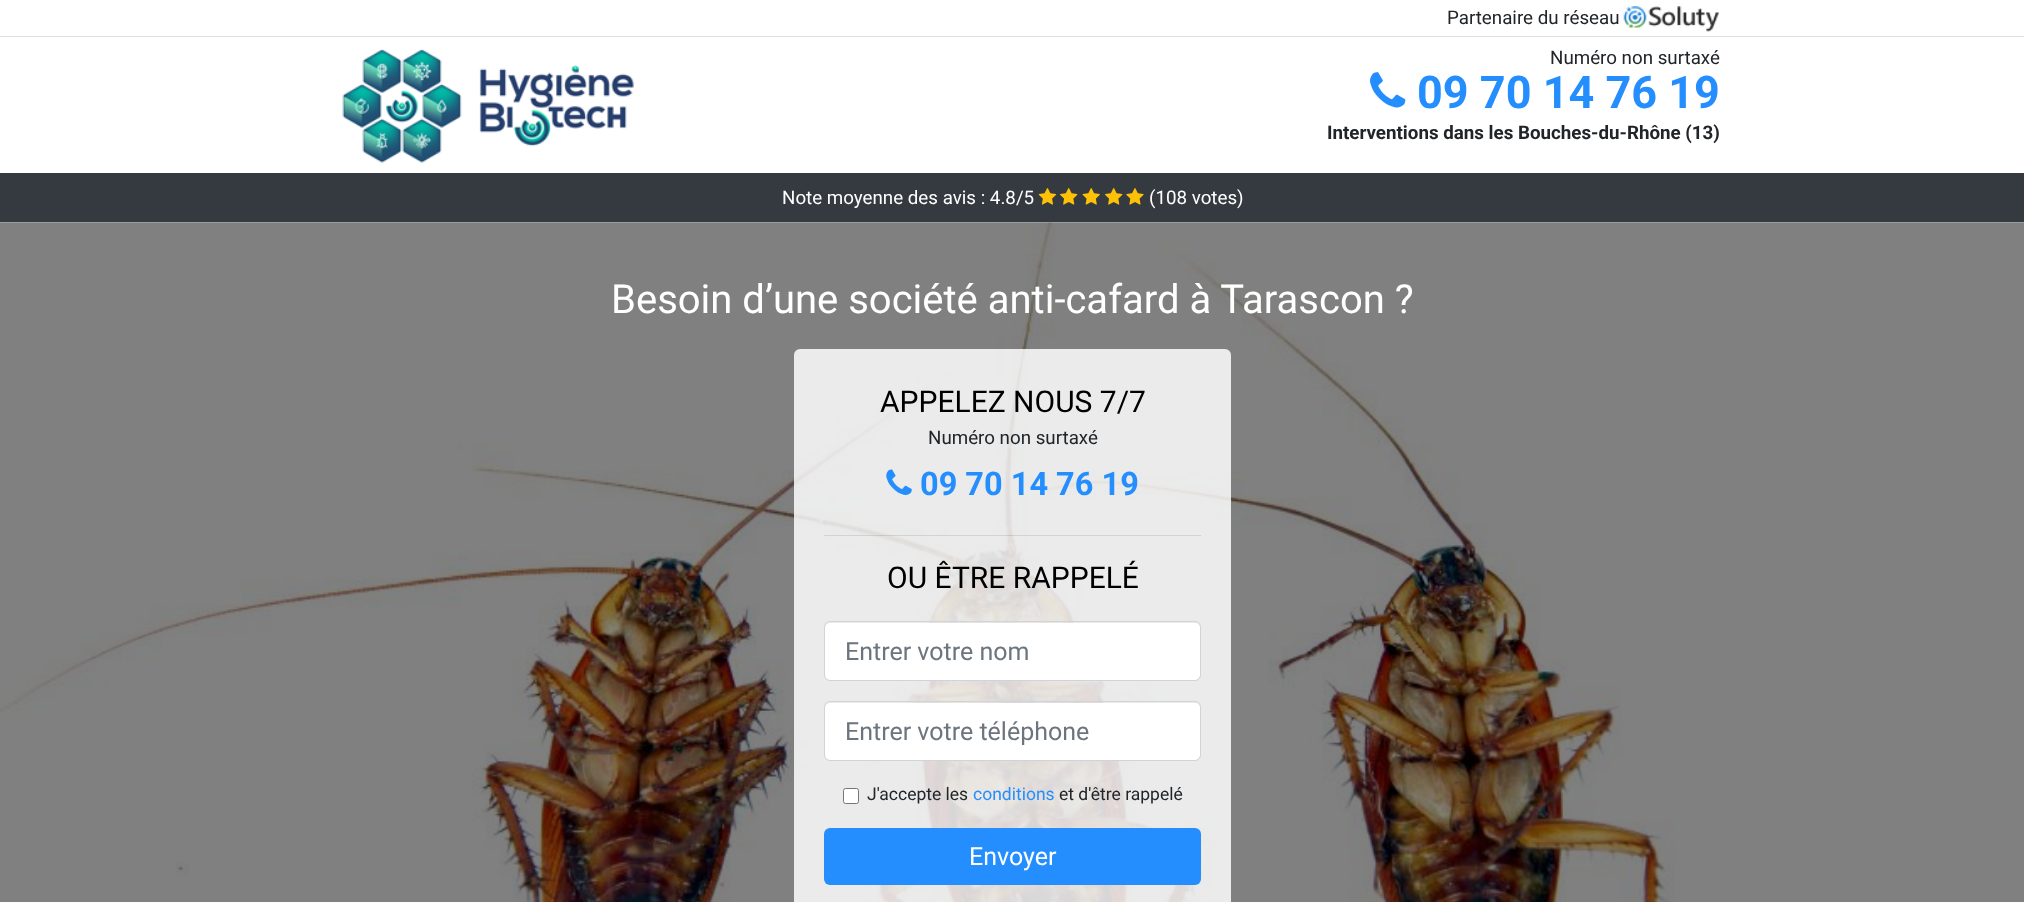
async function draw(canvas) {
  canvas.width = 2024;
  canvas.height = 902;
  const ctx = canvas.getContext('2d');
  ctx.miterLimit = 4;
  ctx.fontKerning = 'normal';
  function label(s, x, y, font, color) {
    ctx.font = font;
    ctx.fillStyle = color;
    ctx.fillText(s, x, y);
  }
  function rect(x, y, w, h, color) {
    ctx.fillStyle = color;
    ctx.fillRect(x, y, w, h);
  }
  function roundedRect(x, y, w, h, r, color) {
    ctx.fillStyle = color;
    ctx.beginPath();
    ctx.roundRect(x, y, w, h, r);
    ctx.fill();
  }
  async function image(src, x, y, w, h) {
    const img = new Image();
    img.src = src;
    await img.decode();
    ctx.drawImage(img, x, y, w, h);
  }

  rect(0, 0, 2024, 902, '#fff');
  rect(0, 36, 2024, 1, '#dee2e6');
  label('Partenaire du réseau', 1447, 24, '18.75px Roboto', '#212529');
  await image('assets/img1.png', 1623, 6, 96, 26);
  await image('assets/img2.png', 342, 49, 292, 114);
  label('Numéro non surtaxé', 1550, 64, '18.75px Roboto', '#212529');
  await image('assets/img3.png', 1370, 72, 36, 36);
  label('09 70 14 76 19', 1417, 108, 'bold 45px Roboto', '#248eff');
  label('Interventions dans les Bouches-du-Rhône (13)', 1327, 139, 'bold 18.75px Roboto', '#212529');
  rect(0, 173, 2024, 50, '#343a40');
  label('Note moyenne des avis : 4.8/5', 782, 204, '18.75px Roboto', '#fff');
  await image('assets/img4.png', 1038, 188, 19, 17);
  await image('assets/img5.png', 1060, 188, 18, 17);
  await image('assets/img6.png', 1082, 188, 18, 17);
  await image('assets/img5.png', 1105, 188, 18, 17);
  await image('assets/img7.png', 1126, 188, 18, 17);
  label('(108 votes)', 1149, 204, '18.75px Roboto', '#fff');
  await image('assets/img8.png', 0, 222, 2024, 680);
  label('Besoin d’une société anti-cafard à Tarascon ?', 611, 313, '40px Roboto', '#fff');
  roundedRect(794, 349, 437, 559, 6, '#ffffffd6');
  label('APPELEZ NOUS 7/7', 880, 412, '30px Roboto', '#000');
  label('Numéro non surtaxé', 928, 444, '18.75px Roboto', '#212529');
  await image('assets/img9.png', 886, 469, 26, 26);
  label('09 70 14 76 19', 920, 495, 'bold 32.5px Roboto', '#248eff');
  rect(824, 535, 377, 1, '#0000001a');
  label('OU ÊTRE RAPPELÉ', 887, 588, '30px Roboto', '#000');
  roundedRect(825, 623, 375, 57, 5, '#fff');
  ctx.beginPath();
  ctx.roundRect(824.5, 621.5, 376, 59, 5.5);
  ctx.strokeStyle = '#ced4da';
  ctx.stroke();
  label('Entrer votre nom', 845, 660, '25px Roboto', '#6c757d');
  roundedRect(825, 703, 375, 57, 5, '#fff');
  ctx.beginPath();
  ctx.roundRect(824.5, 701.5, 376, 59, 5.5);
  ctx.stroke();
  label('Entrer votre téléphone', 845, 740, '25px Roboto', '#6c757d');
  ctx.fillStyle = '#fff';
  ctx.beginPath();
  ctx.roundRect(843.5, 788.5, 15, 15, 2);
  ctx.fill();
  ctx.strokeStyle = '#767676';
  ctx.stroke();
  label('J\'accepte les', 867, 800, '17.5px Roboto', '#212529');
  label('conditions', 973, 800, '17.5px Roboto', '#248eff');
  label('et d\'être rappelé', 1059, 800, '17.5px Roboto', '#212529');
  roundedRect(824, 828, 377, 57, 6, '#248eff');
  label('Envoyer', 969, 865, '25px Roboto', '#fff');
}

draw(document.querySelector('canvas'));
